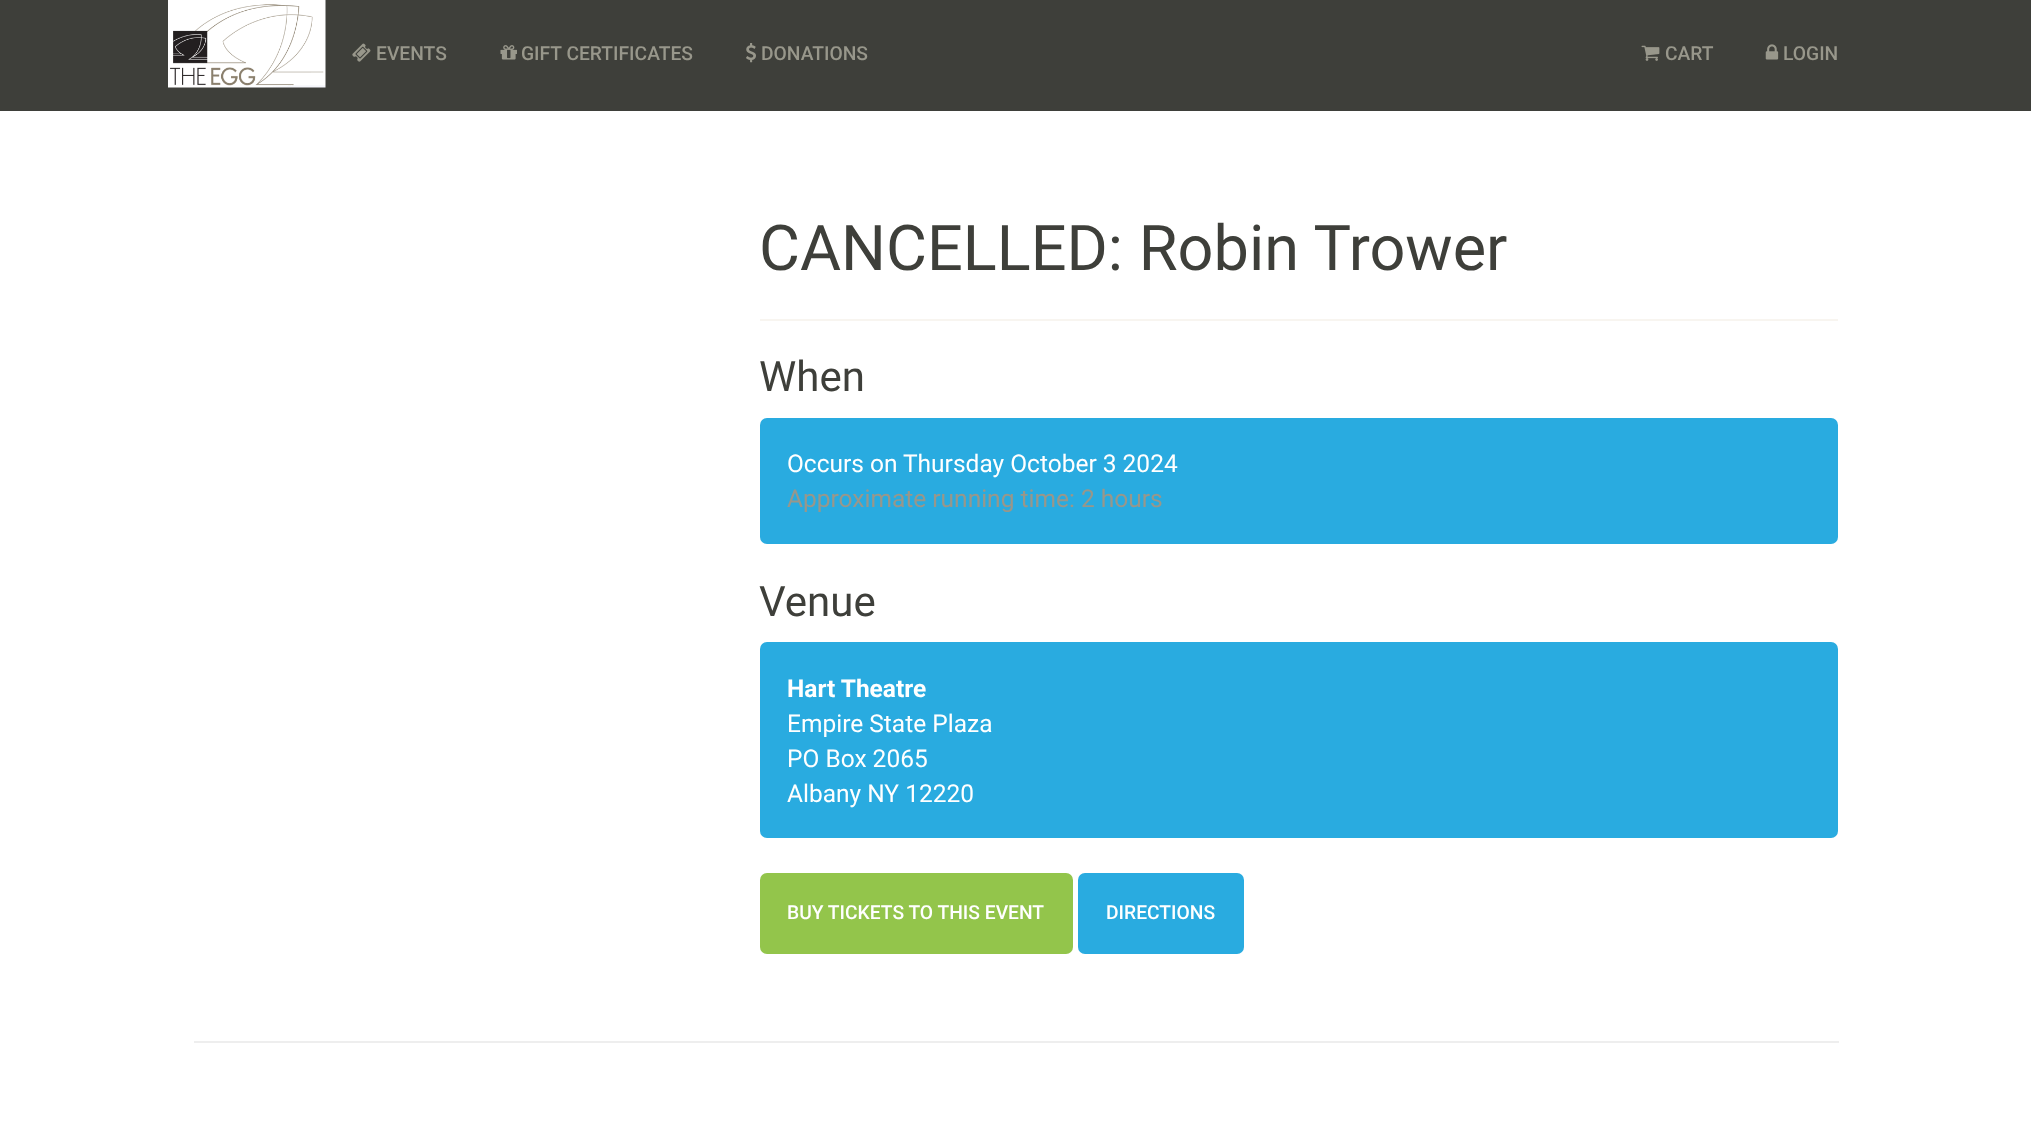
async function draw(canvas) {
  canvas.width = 2031;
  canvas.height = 1121;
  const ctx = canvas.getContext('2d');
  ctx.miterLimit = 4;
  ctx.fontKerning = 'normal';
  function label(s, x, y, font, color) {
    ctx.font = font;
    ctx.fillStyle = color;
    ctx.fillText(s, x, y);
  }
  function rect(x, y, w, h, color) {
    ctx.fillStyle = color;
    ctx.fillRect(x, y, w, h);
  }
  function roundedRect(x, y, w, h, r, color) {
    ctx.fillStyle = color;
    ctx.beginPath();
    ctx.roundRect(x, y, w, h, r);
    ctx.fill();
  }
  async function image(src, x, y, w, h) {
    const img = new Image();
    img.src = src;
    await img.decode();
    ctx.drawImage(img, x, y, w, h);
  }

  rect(0, 0, 2031, 1121, '#fff');
  rect(0, 0, 2031, 111, '#3e3f3a');
  await image('assets/img1.png', 168, 0, 158, 88);
  await image('assets/img2.png', 352, 43, 19, 19);
  label('EVENTS', 376, 60, '500 19.25px Roboto', '#98978b');
  await image('assets/img3.png', 500, 45, 17, 15);
  label('GIFT CERTIFICATES', 521, 60, '500 19.25px Roboto', '#98978b');
  await image('assets/img4.png', 746, 43, 10, 20);
  label('DONATIONS', 761, 60, '500 19.25px Roboto', '#98978b');
  await image('assets/img5.png', 1641, 45, 19, 16);
  label('CART', 1665, 60, '500 19.25px Roboto', '#98978b');
  await image('assets/img6.png', 1765, 44, 14, 16);
  label('LOGIN', 1783, 60, '500 19.25px Roboto', '#98978b');
  rect(760, 319, 1078, 2, '#f8f5f0');
  label('CANCELLED: Robin Trower', 759, 270, '63px Roboto', '#3e3f3a');
  label('When', 759, 391, '42px Roboto', '#3e3f3a');
  roundedRect(760, 418, 1078, 126, 7, '#29abe0');
  label('Occurs on', 787, 472, '24.5px Roboto', '#fff');
  label('Thursday October 3 2024', 903, 472, '24.5px Roboto', '#fff');
  label('Approximate running time: 2 hours', 787, 507, '24.5px Roboto', '#98978b');
  label('Venue', 759, 616, '42px Roboto', '#3e3f3a');
  roundedRect(760, 642, 1078, 196, 7, '#29abe0');
  label('Hart Theatre', 787, 697, 'bold 24.5px Roboto', '#fff');
  label('Empire State Plaza', 787, 732, '24.5px Roboto', '#fff');
  label('PO Box 2065', 787, 767, '24.5px Roboto', '#fff');
  label('Albany NY 12220', 787, 802, '24.5px Roboto', '#fff');
  roundedRect(760, 873, 313, 81, 7, '#93c54b');
  label('BUY TICKETS TO THIS EVENT', 787, 919, '500 19.25px Roboto', '#fff');
  roundedRect(1078, 873, 166, 81, 7, '#29abe0');
  label('DIRECTIONS', 1106, 919, '500 19.25px Roboto', '#fff');
  rect(194, 1041, 1645, 2, '#eee');
}

draw(document.querySelector('canvas'));
